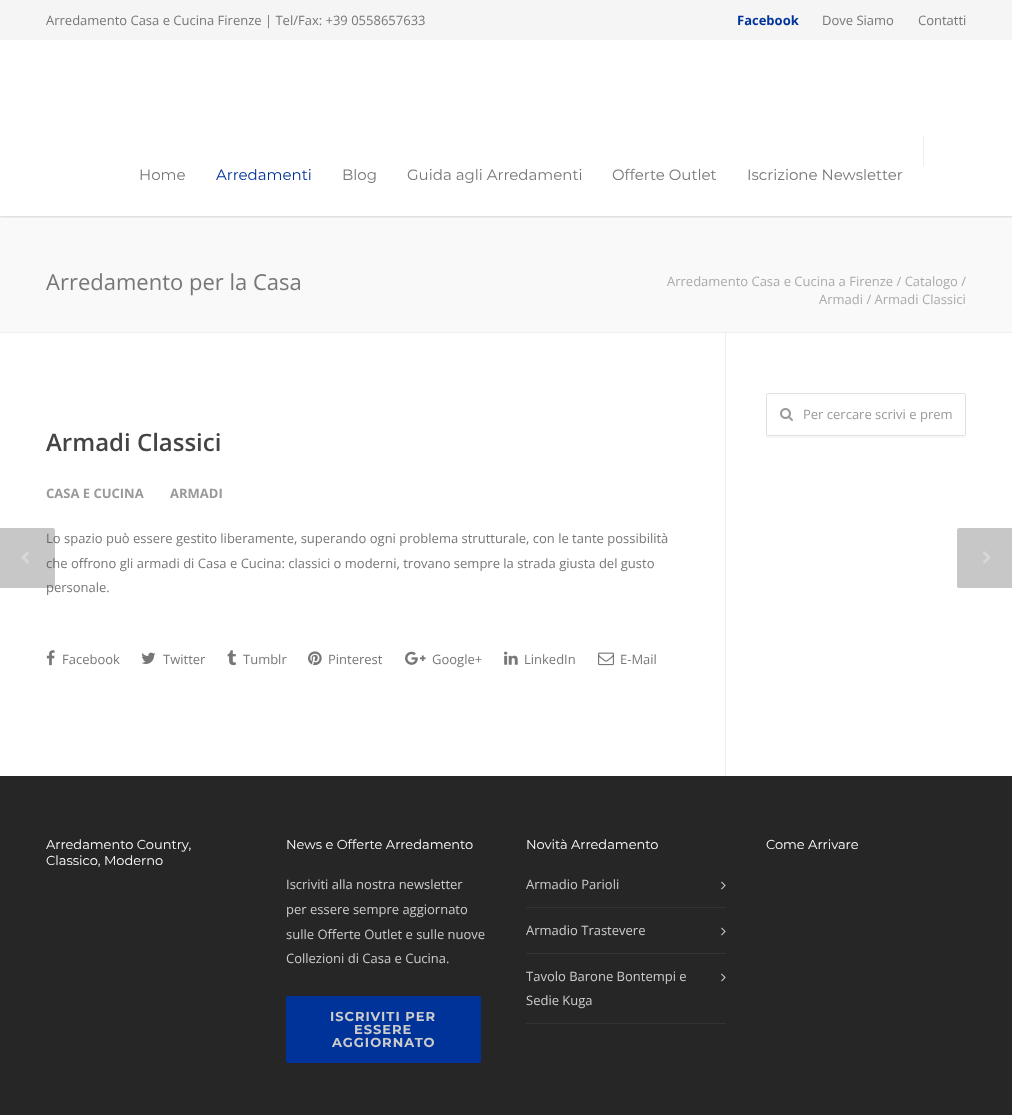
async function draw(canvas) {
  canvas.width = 1012;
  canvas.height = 1115;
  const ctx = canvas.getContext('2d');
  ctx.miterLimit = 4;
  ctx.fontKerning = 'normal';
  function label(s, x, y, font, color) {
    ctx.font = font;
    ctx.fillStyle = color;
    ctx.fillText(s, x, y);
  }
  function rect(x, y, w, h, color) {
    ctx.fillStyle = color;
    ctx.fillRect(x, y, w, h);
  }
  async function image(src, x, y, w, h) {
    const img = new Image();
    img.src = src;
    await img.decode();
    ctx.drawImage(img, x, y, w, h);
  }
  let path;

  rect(0, 0, 1012, 1115, '#fff');
  rect(0, 216, 1012, 116, '#f9f9f9');
  ctx.save();
  ctx.beginPath();
  ctx.rect(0, 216, 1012, 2);
  ctx.clip();
  ctx.fillStyle = '#00000026';
  ctx.filter = 'blur(1px)';
  ctx.beginPath();
  ctx.rect(0, 41, 1012, 176);
  ctx.fill();
  ctx.filter = 'none';
  ctx.restore();
  rect(0, 0, 1012, 40, '#f5f5f5');
  label('Arredamento Casa e Cucina Firenze | Tel/Fax: +39 0558657633', 46, 25, '13px Open Sans', '#777');
  label('Facebook', 737, 25, 'bold 13px Open Sans', '#039');
  label('Dove Siamo', 822, 25, '13px Open Sans', '#777');
  label('Contatti', 918, 25, '13px Open Sans', '#777');
  rect(923, 136, 1, 30, '#efefef');
  label('Home', 139, 180, '15px Montserrat', '#777');
  label('Arredamenti', 216, 180, '15px Montserrat', '#039');
  label('Blog', 342, 180, '15px Montserrat', '#777');
  label('Guida agli Arredamenti', 407, 180, '15px Montserrat', '#777');
  label('Offerte Outlet', 612, 180, '15px Montserrat', '#777');
  label('Iscrizione Newsletter', 747, 180, '15px Montserrat', '#777');
  rect(0, 332, 1012, 1, '#efefef');
  label('Arredamento per la Casa', 46, 290, '22px Open Sans', '#777');
  label('Arredamento Casa e Cucina a Firenze / Catalogo /', 667, 286, '13px Open Sans', '#aaa');
  label('Armadi / Armadi Classici', 819, 304, '13px Open Sans', '#aaa');
  ctx.fillStyle = '#f7f7f7';
  path = new Path2D('M766 434C766 436 766 438 768 438H964C966 438 966 436 966 434C966 435 965 436 964 436H768C767 436 766 435 766 434Z');
  ctx.fill(path);
  ctx.beginPath();
  ctx.roundRect(766.5, 393.5, 199, 42, 1.5);
  ctx.strokeStyle = '#e1e1e1';
  ctx.stroke();
  await image('assets/img1.png', 780, 408, 13, 13);
  label('Per cercare scrivi e prem', 803, 419, '13px Open Sans', '#999');
  rect(725, 333, 1, 443, '#efefef');
  label('Armadi Classici', 46, 451, '600 24px Open Sans', '#444');
  label('CASA E CUCINA', 46, 498, 'bold 13px Open Sans', '#999');
  label('ARMADI', 170, 498, 'bold 13px Open Sans', '#999');
  label('Lo spazio può essere gestito liberamente, superando ogni problema strutturale, con le tante possibilità', 46, 543, '13px Open Sans', '#777');
  label('che offrono gli armadi di Casa e Cucina: classici o moderni, trovano sempre la strada giusta del gusto', 46, 568, '13px Open Sans', '#777');
  label('personale.', 46, 592, '13px Open Sans', '#777');
  ctx.fillStyle = '#4444444d';
  path = new Path2D('M-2 528H53C54 528 55 529 55 530V586C55 587 54 588 53 588H-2Z');
  ctx.fill(path);
  await image('assets/img2.png', 21, 551, 8, 13);
  ctx.fillStyle = '#c7c7c7';
  path = new Path2D('M959 528H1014V588H959C958 588 957 587 957 586V530C957 529 958 528 959 528Z');
  ctx.fill(path);
  await image('assets/img3.png', 983, 551, 8, 13);
  await image('assets/img4.png', 46, 650, 9, 16);
  label('Facebook', 62, 664, '13px Open Sans', '#777');
  await image('assets/img5.png', 141, 652, 15, 12);
  label('Twitter', 163, 664, '13px Open Sans', '#777');
  await image('assets/img6.png', 227, 650, 10, 16);
  label('Tumblr', 243, 664, '13px Open Sans', '#777');
  await image('assets/img7.png', 308, 651, 14, 15);
  label('Pinterest', 328, 664, '13px Open Sans', '#777');
  await image('assets/img8.png', 405, 651, 21, 14);
  label('Google+', 432, 664, '13px Open Sans', '#777');
  await image('assets/img9.png', 504, 651, 14, 14);
  label('LinkedIn', 524, 664, '13px Open Sans', '#777');
  await image('assets/img10.png', 598, 652, 16, 14);
  label('E-Mail', 620, 664, '13px Open Sans', '#777');
  rect(0, 776, 1012, 339, '#262626');
  label('Arredamento Country,', 46, 849, '13px Montserrat', '#fff');
  label('Classico, Moderno', 46, 865, '13px Montserrat', '#fff');
  label('News e Offerte Arredamento', 286, 849, '13px Montserrat', '#fff');
  label('Iscriviti alla nostra newsletter', 286, 889, '13px Open Sans', '#ccc');
  label('per essere sempre aggiornato', 286, 914, '13px Open Sans', '#ccc');
  label('sulle Offerte Outlet e sulle nuove', 286, 939, '13px Open Sans', '#ccc');
  label('Collezioni di Casa e Cucina.', 286, 963, '13px Open Sans', '#ccc');
  ctx.fillStyle = '#039';
  ctx.beginPath();
  ctx.roundRect(287, 997, 193, 65, 1);
  ctx.fill();
  ctx.strokeStyle = '#039';
  ctx.lineWidth = 2;
  ctx.stroke();
  ctx.letterSpacing = '1px';
  label('ISCRIVITI PER', 330, 1021, 'bold 13px Montserrat', '#ccc');
  label('ESSERE', 354, 1034, 'bold 13px Montserrat', '#ccc');
  label('AGGIORNATO', 332, 1047, 'bold 13px Montserrat', '#ccc');
  ctx.letterSpacing = '0px';
  label('Novità Arredamento', 526, 849, '13px Montserrat', '#fff');
  rect(526, 907, 200, 1, '#333');
  label('Armadio Parioli', 526, 889, '13px Open Sans', '#ccc');
  await image('assets/img11.png', 721, 881, 5, 9);
  rect(526, 953, 200, 1, '#333');
  label('Armadio Trastevere', 526, 935, '13px Open Sans', '#ccc');
  await image('assets/img11.png', 721, 927, 5, 9);
  rect(526, 1023, 200, 1, '#333');
  label('Tavolo Barone Bontempi e', 526, 981, '13px Open Sans', '#ccc');
  label('Sedie Kuga', 526, 1005, '13px Open Sans', '#ccc');
  await image('assets/img11.png', 721, 973, 5, 9);
  label('Come Arrivare', 766, 849, '13px Montserrat', '#fff');
}

draw(document.querySelector('canvas'));
